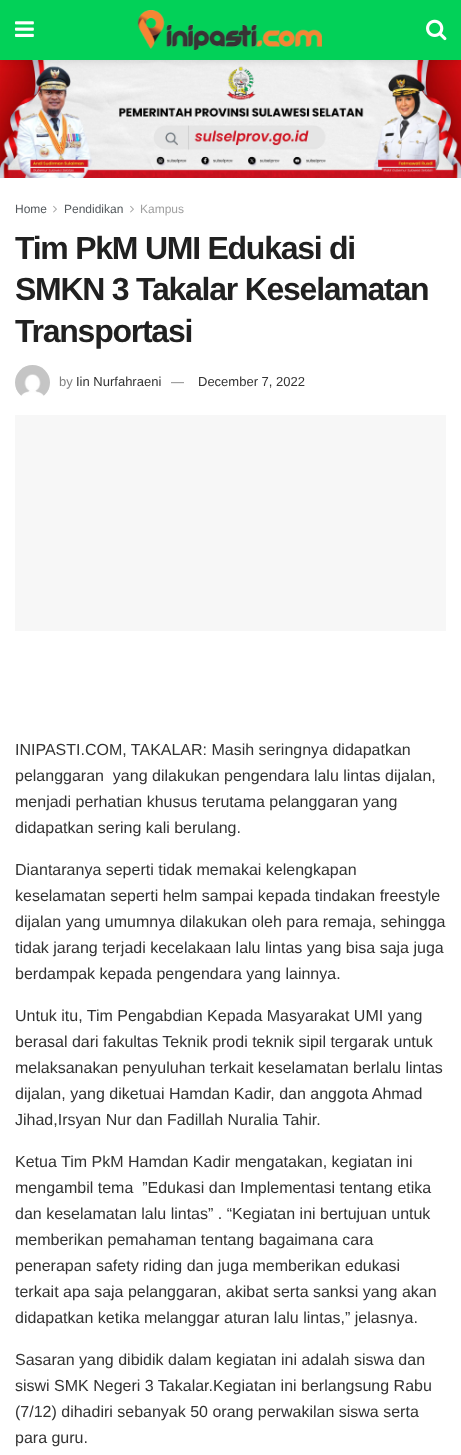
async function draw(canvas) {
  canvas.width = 461;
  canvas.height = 1455;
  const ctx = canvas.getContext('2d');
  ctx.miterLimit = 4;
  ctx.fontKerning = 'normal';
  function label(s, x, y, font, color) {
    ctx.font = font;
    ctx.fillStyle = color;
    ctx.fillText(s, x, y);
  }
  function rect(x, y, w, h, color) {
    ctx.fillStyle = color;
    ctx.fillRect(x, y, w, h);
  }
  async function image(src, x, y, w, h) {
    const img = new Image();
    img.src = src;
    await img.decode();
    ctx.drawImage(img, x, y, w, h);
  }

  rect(0, 0, 461, 1455, '#fff');
  await image('assets/img4.png', 0, 60, 461, 118);
  ctx.fillStyle = '#0000001a';
  ctx.filter = 'blur(3px)';
  ctx.beginPath();
  ctx.rect(0, 2, 461, 60);
  ctx.fill();
  ctx.filter = 'none';
  rect(0, 0, 461, 60, '#02d158');
  await image('assets/img1.png', 15, 21, 19, 16);
  await image('assets/img2.png', 137, 10, 185, 40);
  await image('assets/img3.png', 426, 19, 21, 22);
  label('Home', 15, 213, '12px Liberation Sans', '#53585c');
  await image('assets/img5.png', 53, 205, 4, 8);
  label('Pendidikan', 64, 213, '12px Liberation Sans', '#53585c');
  await image('assets/img5.png', 130, 205, 4, 8);
  label('Kampus', 140, 213, '12px Liberation Sans', '#a0a0a0');
  ctx.letterSpacing = '-1.25px';
  label('Tim PkM UMI Edukasi di', 15, 259, 'bold 32px Liberation Sans', '#212121');
  label('SMKN 3 Takalar Keselamatan', 15, 300, 'bold 32px Liberation Sans', '#212121');
  label('Transportasi', 15, 342, 'bold 32px Liberation Sans', '#212121');
  await image('assets/img6.png', 15, 365, 35, 31);
  ctx.letterSpacing = '0px';
  label('by', 59, 386, '13px Liberation Sans', '#808080');
  label('Iin Nurfahraeni', 76, 386, '13px Liberation Sans', '#333');
  label('—', 171, 386, '13px Liberation Sans', '#808080');
  label('December 7, 2022', 198, 386, '13px Liberation Sans', '#333');
  rect(15, 415, 431, 216, '#f7f7f7');
  label('INIPASTI.COM, TAKALAR: Masih seringnya didapatkan', 15, 755, '16px Liberation Sans', '#333');
  label('pelanggaran  yang dilakukan pengendara lalu lintas dijalan,', 15, 781, '16px Liberation Sans', '#333');
  label('menjadi perhatian khusus terutama pelanggaran yang', 15, 807, '16px Liberation Sans', '#333');
  label('didapatkan sering kali berulang.', 15, 833, '16px Liberation Sans', '#333');
  label('Diantaranya seperti tidak memakai kelengkapan', 15, 875, '16px Liberation Sans', '#333');
  label('keselamatan seperti helm sampai kepada tindakan freestyle', 15, 901, '16px Liberation Sans', '#333');
  label('dijalan yang umumnya dilakukan oleh para remaja, sehingga', 15, 927, '16px Liberation Sans', '#333');
  label('tidak jarang terjadi kecelakaan lalu lintas yang bisa saja juga', 15, 953, '16px Liberation Sans', '#333');
  label('berdampak kepada pengendara yang lainnya.', 15, 979, '16px Liberation Sans', '#333');
  label('Untuk itu, Tim Pengabdian Kepada Masyarakat UMI yang', 15, 1021, '16px Liberation Sans', '#333');
  label('berasal dari fakultas Teknik prodi teknik sipil tergarak untuk', 15, 1047, '16px Liberation Sans', '#333');
  label('melaksanakan penyuluhan terkait keselamatan berlalu lintas', 15, 1073, '16px Liberation Sans', '#333');
  label('dijalan, yang diketuai Hamdan Kadir, dan anggota Ahmad', 15, 1099, '16px Liberation Sans', '#333');
  label('Jihad,Irsyan Nur dan Fadillah Nuralia Tahir.', 15, 1125, '16px Liberation Sans', '#333');
  label('Ketua Tim PkM Hamdan Kadir mengatakan, kegiatan ini', 15, 1167, '16px Liberation Sans', '#333');
  label('mengambil tema  ”Edukasi dan Implementasi tentang etika', 15, 1193, '16px Liberation Sans', '#333');
  label('dan keselamatan lalu lintas” . “Kegiatan ini bertujuan untuk', 15, 1219, '16px Liberation Sans', '#333');
  label('memberikan pemahaman tentang bagaimana cara', 15, 1245, '16px Liberation Sans', '#333');
  label('penerapan safety riding dan juga memberikan edukasi', 15, 1271, '16px Liberation Sans', '#333');
  label('terkait apa saja pelanggaran, akibat serta sanksi yang akan', 15, 1297, '16px Liberation Sans', '#333');
  label('didapatkan ketika melanggar aturan lalu lintas,” jelasnya.', 15, 1323, '16px Liberation Sans', '#333');
  label('Sasaran yang dibidik dalam kegiatan ini adalah siswa dan', 15, 1365, '16px Liberation Sans', '#333');
  label('siswi SMK Negeri 3 Takalar.Kegiatan ini berlangsung Rabu', 15, 1391, '16px Liberation Sans', '#333');
  label('(7/12) dihadiri sebanyak 50 orang perwakilan siswa serta', 15, 1417, '16px Liberation Sans', '#333');
  label('para guru.', 15, 1443, '16px Liberation Sans', '#333');
}

draw(document.querySelector('canvas'));
